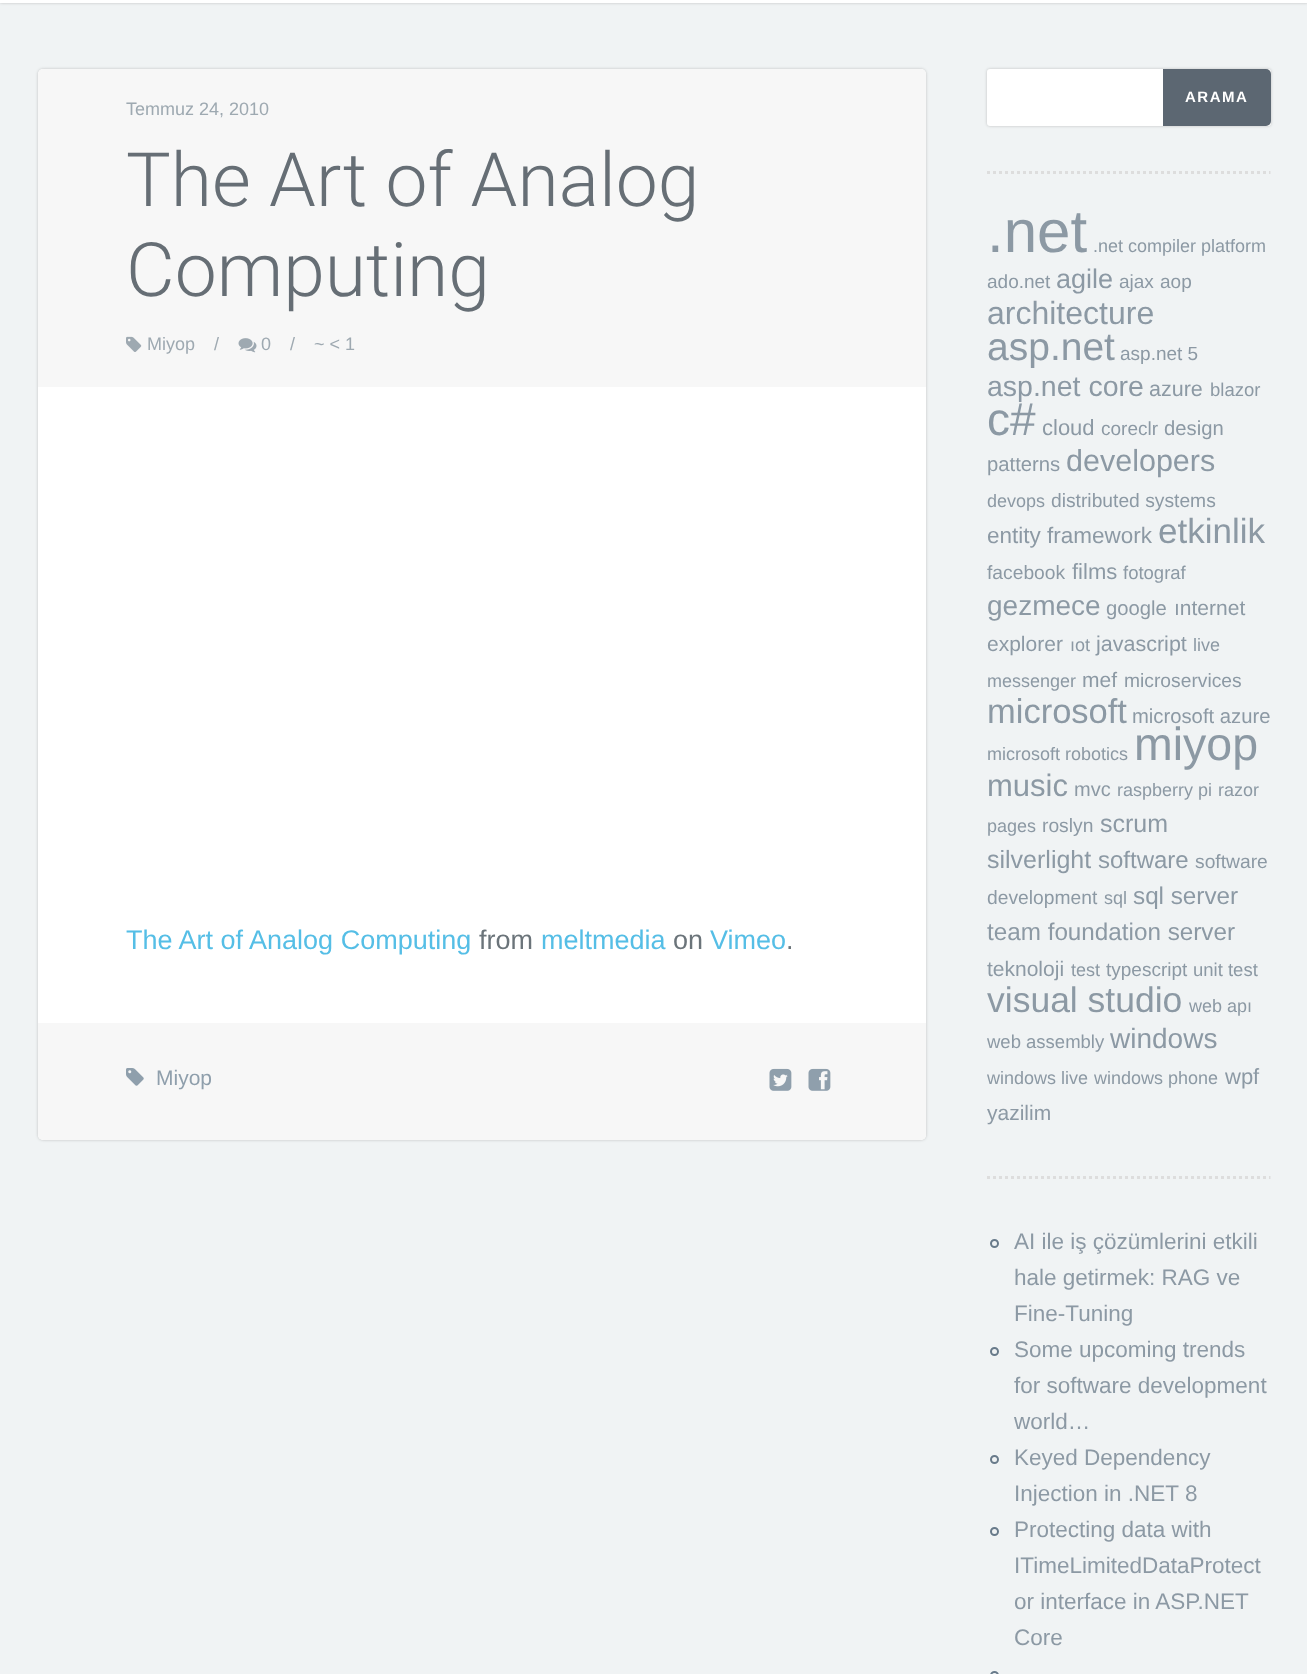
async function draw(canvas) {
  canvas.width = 1307;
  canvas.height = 1674;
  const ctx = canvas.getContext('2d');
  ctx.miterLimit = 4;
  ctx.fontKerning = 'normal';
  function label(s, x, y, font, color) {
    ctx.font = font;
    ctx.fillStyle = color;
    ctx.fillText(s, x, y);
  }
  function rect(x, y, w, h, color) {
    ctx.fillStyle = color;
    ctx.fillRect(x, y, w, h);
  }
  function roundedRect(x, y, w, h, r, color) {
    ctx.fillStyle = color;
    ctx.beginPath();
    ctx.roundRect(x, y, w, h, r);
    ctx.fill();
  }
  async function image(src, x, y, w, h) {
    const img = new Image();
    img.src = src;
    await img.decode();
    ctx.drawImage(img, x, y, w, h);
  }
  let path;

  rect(0, 0, 1307, 1674, '#f0f3f4');
  ctx.fillStyle = '#00000033';
  ctx.filter = 'blur(1.5px)';
  ctx.beginPath();
  ctx.rect(0, -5, 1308, 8);
  ctx.fill();
  ctx.filter = 'none';
  rect(0, 0, 1307, 3, '#fff');
  ctx.fillStyle = '#00000033';
  ctx.filter = 'blur(1.5px)';
  ctx.beginPath();
  ctx.roundRect(38, 69, 888, 1071, 5);
  ctx.fill();
  ctx.filter = 'none';
  roundedRect(38, 69, 888, 1071, 5, '#fff');
  ctx.fillStyle = '#f7f7f7';
  ctx.beginPath();
  ctx.roundRect(38, 69, 888, 318, [5, 5, 0, 0]);
  ctx.fill();
  label('Temmuz 24, 2010', 126, 115, '18px Liberation Sans', '#9ea9b1');
  label('The Art of Analog', 126, 206, '300 75px Roboto', '#666e75');
  label('Computing', 126, 296, '300 75px Roboto', '#666e75');
  await image('assets/img1.png', 126, 336, 16, 16);
  label('Miyop', 147, 350, '18px Liberation Sans', '#9ea9b1');
  label('/', 214, 350, '18px Liberation Sans', '#9ea9b1');
  await image('assets/img2.png', 238, 338, 19, 15);
  label('0', 261, 350, '18px Liberation Sans', '#9ea9b1');
  label('/', 290, 350, '18px Liberation Sans', '#9ea9b1');
  label('~ < 1', 314, 350, '18px Liberation Sans', '#9ea9b1');
  label('The Art of Analog Computing', 126, 949, '27px Liberation Sans', '#55bee6');
  label('from', 479, 949, '27px Liberation Sans', '#6b747a');
  label('meltmedia', 541, 949, '27px Liberation Sans', '#55bee6');
  label('on', 673, 949, '27px Liberation Sans', '#6b747a');
  label('Vimeo', 710, 949, '27px Liberation Sans', '#55bee6');
  label('.', 786, 949, '27px Liberation Sans', '#6b747a');
  ctx.fillStyle = '#f7f7f7';
  ctx.beginPath();
  ctx.roundRect(38, 1023, 888, 117, [0, 0, 5, 5]);
  ctx.fill();
  await image('assets/img3.png', 126, 1068, 18, 18);
  label('Miyop', 156, 1085, '21px Liberation Sans', '#8f9fac');
  await image('assets/img4.png', 769, 1068, 23, 23);
  await image('assets/img5.png', 808, 1068, 23, 23);
  path = new Path2D('M987 172.5H1270.5');
  ctx.strokeStyle = '#ddd';
  ctx.lineWidth = 3;
  ctx.setLineDash([3, 3]);
  ctx.stroke(path);
  ctx.fillStyle = '#00000033';
  ctx.filter = 'blur(1.5px)';
  ctx.beginPath();
  ctx.roundRect(987, 69, 284, 57, 3);
  ctx.fill();
  ctx.filter = 'none';
  roundedRect(987, 69, 284, 57, 3, '#fff');
  ctx.fillStyle = '#5c6772';
  ctx.beginPath();
  ctx.roundRect(1163, 69, 108, 57, [0, 5, 5, 0]);
  ctx.fill();
  ctx.letterSpacing = '1.5px';
  label('ARAMA', 1185, 102, 'bold 15px Liberation Sans', '#fff');
  path = new Path2D('M987 1177.5H1270.5');
  ctx.stroke(path);
  ctx.letterSpacing = '0px';
  label('.net', 987, 252, '60px Liberation Sans', '#8c99a4');
  label('.net compiler platform', 1093, 252, '18px Liberation Sans', '#8c99a4');
  label('ado.net', 987, 288, '19px Liberation Sans', '#8c99a4');
  label('agile', 1056, 288, '27px Liberation Sans', '#8c99a4');
  label('ajax', 1119, 288, '19px Liberation Sans', '#8c99a4');
  label('aop', 1160, 288, '19px Liberation Sans', '#8c99a4');
  label('architecture', 987, 324, '32px Liberation Sans', '#8c99a4');
  label('asp.net', 987, 360, '39px Liberation Sans', '#8c99a4');
  label('asp.net 5', 1120, 360, '19px Liberation Sans', '#8c99a4');
  label('asp.net core', 987, 396, '28.5px Liberation Sans', '#8c99a4');
  label('azure', 1149, 396, '21.5px Liberation Sans', '#8c99a4');
  label('blazor', 1210, 396, '18.5px Liberation Sans', '#8c99a4');
  label('c#', 987, 435, '46px Liberation Sans', '#8c99a4');
  label('cloud', 1042, 435, '22px Liberation Sans', '#8c99a4');
  label('coreclr', 1101, 435, '19px Liberation Sans', '#8c99a4');
  label('design', 1164, 435, '20.25px Liberation Sans', '#8c99a4');
  label('patterns', 987, 471, '20.25px Liberation Sans', '#8c99a4');
  label('developers', 1066, 471, '30.5px Liberation Sans', '#8c99a4');
  label('devops', 987, 507, '18px Liberation Sans', '#8c99a4');
  label('distributed systems', 1051, 507, '19.25px Liberation Sans', '#8c99a4');
  label('entity framework', 987, 543, '22.5px Liberation Sans', '#8c99a4');
  label('etkinlik', 1158, 543, '35px Liberation Sans', '#8c99a4');
  label('facebook', 987, 579, '19.25px Liberation Sans', '#8c99a4');
  label('films', 1072, 579, '22px Liberation Sans', '#8c99a4');
  label('fotograf', 1123, 579, '18.5px Liberation Sans', '#8c99a4');
  label('gezmece', 987, 615, '28px Liberation Sans', '#8c99a4');
  label('google', 1106, 615, '20.25px Liberation Sans', '#8c99a4');
  label('ınternet', 1174, 615, '21px Liberation Sans', '#8c99a4');
  label('explorer', 987, 651, '21px Liberation Sans', '#8c99a4');
  label('ıot', 1070, 651, '18px Liberation Sans', '#8c99a4');
  label('javascript', 1096, 651, '21.5px Liberation Sans', '#8c99a4');
  label('live', 1193, 651, '18px Liberation Sans', '#8c99a4');
  label('messenger', 987, 687, '18px Liberation Sans', '#8c99a4');
  label('mef', 1082, 687, '21px Liberation Sans', '#8c99a4');
  label('microservices', 1124, 687, '19.25px Liberation Sans', '#8c99a4');
  label('microsoft', 987, 723, '34.5px Liberation Sans', '#8c99a4');
  label('microsoft azure', 1132, 723, '20.25px Liberation Sans', '#8c99a4');
  label('microsoft robotics', 987, 760, '18px Liberation Sans', '#8c99a4');
  label('miyop', 1134, 760, '46.5px Liberation Sans', '#8c99a4');
  label('music', 987, 796, '31px Liberation Sans', '#8c99a4');
  label('mvc', 1074, 796, '20px Liberation Sans', '#8c99a4');
  label('raspberry pi', 1117, 796, '18px Liberation Sans', '#8c99a4');
  label('razor', 1218, 796, '18px Liberation Sans', '#8c99a4');
  label('pages', 987, 832, '18px Liberation Sans', '#8c99a4');
  label('roslyn', 1042, 832, '19.25px Liberation Sans', '#8c99a4');
  label('scrum', 1100, 832, '25px Liberation Sans', '#8c99a4');
  label('silverlight', 987, 868, '25px Liberation Sans', '#8c99a4');
  label('software', 1098, 868, '24px Liberation Sans', '#8c99a4');
  label('software', 1195, 868, '19.25px Liberation Sans', '#8c99a4');
  label('development', 987, 904, '19.25px Liberation Sans', '#8c99a4');
  label('sql', 1104, 904, '18px Liberation Sans', '#8c99a4');
  label('sql server', 1133, 904, '24.25px Liberation Sans', '#8c99a4');
  label('team foundation server', 987, 940, '24.25px Liberation Sans', '#8c99a4');
  label('teknoloji', 987, 976, '21px Liberation Sans', '#8c99a4');
  label('test', 1071, 976, '18px Liberation Sans', '#8c99a4');
  label('typescript', 1106, 976, '19px Liberation Sans', '#8c99a4');
  label('unit test', 1193, 976, '18.5px Liberation Sans', '#8c99a4');
  label('visual studio', 987, 1012, '35.5px Liberation Sans', '#8c99a4');
  label('web apı', 1189, 1012, '18px Liberation Sans', '#8c99a4');
  label('web assembly', 987, 1048, '18.5px Liberation Sans', '#8c99a4');
  label('windows', 1110, 1048, '28px Liberation Sans', '#8c99a4');
  label('windows live', 987, 1084, '18px Liberation Sans', '#8c99a4');
  label('windows phone', 1094, 1084, '18px Liberation Sans', '#8c99a4');
  label('wpf', 1225, 1084, '22px Liberation Sans', '#8c99a4');
  label('yazilim', 987, 1120, '21px Liberation Sans', '#8c99a4');
  ctx.beginPath();
  ctx.arc(994.5, 1243.5, 3.5, 0, 2 * Math.PI);
  ctx.strokeStyle = '#687a8a';
  ctx.lineWidth = 2;
  ctx.setLineDash([]);
  ctx.stroke();
  label('AI ile iş çözümlerini etkili', 1014, 1249, '22.5px Liberation Sans', '#8c99a4');
  label('hale getirmek: RAG ve', 1014, 1285, '22.5px Liberation Sans', '#8c99a4');
  label('Fine-Tuning', 1014, 1321, '22.5px Liberation Sans', '#8c99a4');
  ctx.beginPath();
  ctx.arc(994.5, 1351.5, 3.5, 0, 2 * Math.PI);
  ctx.stroke();
  label('Some upcoming trends', 1014, 1357, '22.5px Liberation Sans', '#8c99a4');
  label('for software development', 1014, 1393, '22.5px Liberation Sans', '#8c99a4');
  label('world…', 1014, 1429, '22.5px Liberation Sans', '#8c99a4');
  ctx.beginPath();
  ctx.arc(994.5, 1459.5, 3.5, 0, 2 * Math.PI);
  ctx.stroke();
  label('Keyed Dependency', 1014, 1465, '22.5px Liberation Sans', '#8c99a4');
  label('Injection in .NET 8', 1014, 1501, '22.5px Liberation Sans', '#8c99a4');
  ctx.beginPath();
  ctx.arc(994.5, 1531.5, 3.5, 0, 2 * Math.PI);
  ctx.stroke();
  label('Protecting data with', 1014, 1537, '22.5px Liberation Sans', '#8c99a4');
  label('ITimeLimitedDataProtect', 1014, 1573, '22.5px Liberation Sans', '#8c99a4');
  label('or interface in ASP.NET', 1014, 1609, '22.5px Liberation Sans', '#8c99a4');
  label('Core', 1014, 1645, '22.5px Liberation Sans', '#8c99a4');
  ctx.beginPath();
  ctx.arc(994.5, 1675.5, 3.5, 0, 2 * Math.PI);
  ctx.stroke();
}

draw(document.querySelector('canvas'));
